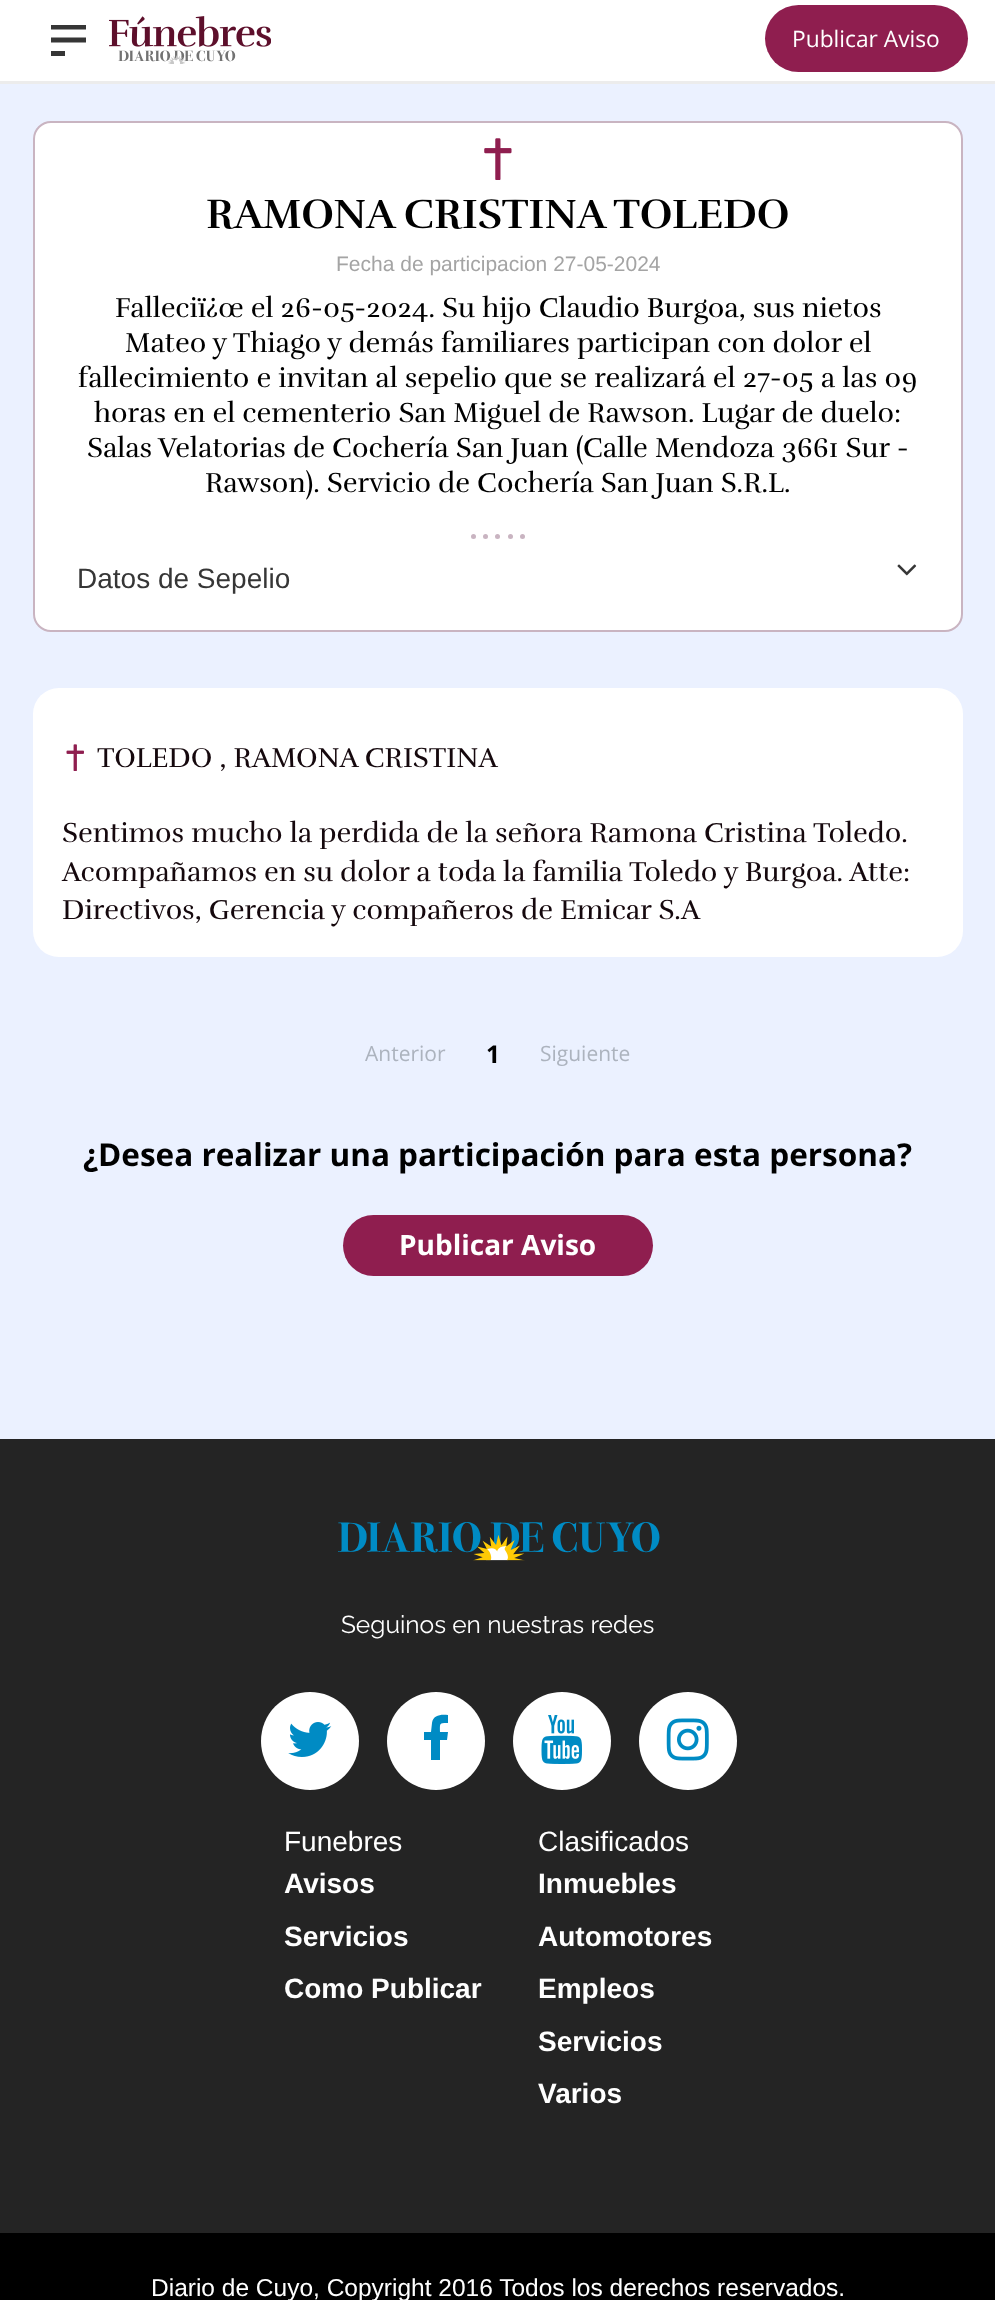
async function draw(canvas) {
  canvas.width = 995;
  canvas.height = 2300;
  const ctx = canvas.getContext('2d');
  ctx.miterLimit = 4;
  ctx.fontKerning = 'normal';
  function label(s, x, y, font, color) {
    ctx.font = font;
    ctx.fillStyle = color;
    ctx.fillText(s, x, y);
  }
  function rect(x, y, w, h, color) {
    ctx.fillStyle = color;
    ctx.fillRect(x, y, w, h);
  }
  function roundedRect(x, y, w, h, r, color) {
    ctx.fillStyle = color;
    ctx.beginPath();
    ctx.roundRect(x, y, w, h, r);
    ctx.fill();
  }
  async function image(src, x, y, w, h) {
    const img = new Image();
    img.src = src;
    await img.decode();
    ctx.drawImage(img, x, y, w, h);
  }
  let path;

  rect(0, 0, 995, 2300, '#fff');
  rect(0, 81, 995, 3, '#ececec');
  ctx.save();
  ctx.beginPath();
  ctx.rect(51, 25, 35, 31);
  ctx.clip();
  path = new Path2D('M86 27H51');
  ctx.strokeStyle = '#363636';
  ctx.lineWidth = 5.2;
  ctx.stroke(path);
  ctx.restore();
  path = new Path2D('M86 40H51');
  ctx.strokeStyle = '#363636';
  ctx.lineWidth = 5.2;
  ctx.stroke(path);
  rect(51, 51, 14, 5, '#363636');
  await image('assets/img1.png', 109, 16, 162, 31);
  await image('assets/img2.png', 118, 50, 118, 14);
  roundedRect(765, 5, 203, 67, 33.5, '#8f1e4f');
  label('Publicar Aviso', 792, 47, '22.75px Open Sans', '#fff');
  rect(0, 84, 995, 1355, '#ebf1ff');
  ctx.fillStyle = '#fff';
  ctx.beginPath();
  ctx.roundRect(34, 122, 928, 509, 17);
  ctx.fill();
  ctx.strokeStyle = '#c9b4c1';
  ctx.lineWidth = 2;
  ctx.stroke();
  await image('assets/img3.png', 484, 138, 28, 42);
  label('RAMONA CRISTINA TOLEDO', 206, 228, 'bold 42px Rufina', '#000');
  label('Fecha de participacion 27-05-2024', 336, 271, '21px Liberation Sans', '#a4a4a4');
  label('Falleciï¿œ el 26-05-2024. Su hijo Claudio Burgoa, sus nietos', 115, 317, '28px Rufina', '#000');
  label('Mateo y Thiago y demás familiares participan con dolor el', 125, 352, '28px Rufina', '#000');
  label('fallecimiento e invitan al sepelio que se realizará el 27-05 a las 09', 78, 387, '28px Rufina', '#000');
  label('horas en el cementerio San Miguel de Rawson. Lugar de duelo:', 94, 422, '28px Rufina', '#000');
  label('Salas Velatorias de Cochería San Juan (Calle Mendoza 3661 Sur -', 87, 457, '28px Rufina', '#000');
  label('Rawson). Servicio de Cochería San Juan S.R.L.', 205, 492, '28px Rufina', '#000');
  ctx.fillStyle = '#c9b4c1';
  ctx.beginPath();
  ctx.arc(473.5, 536.5, 2.5, 0, 2 * Math.PI);
  ctx.fill();
  ctx.beginPath();
  ctx.arc(485.5, 536.5, 2.5, 0, 2 * Math.PI);
  ctx.fill();
  ctx.beginPath();
  ctx.arc(497.5, 536.5, 2.5, 0, 2 * Math.PI);
  ctx.fill();
  ctx.beginPath();
  ctx.arc(510.5, 536.5, 2.5, 0, 2 * Math.PI);
  ctx.fill();
  ctx.beginPath();
  ctx.arc(522.5, 536.5, 2.5, 0, 2 * Math.PI);
  ctx.fill();
  label('Datos de Sepelio', 77, 588, '28px Liberation Sans', '#363636');
  await image('assets/img4.png', 897, 564, 20, 12);
  roundedRect(33, 688, 930, 269, 26, '#fff');
  await image('assets/img5.png', 66, 744, 18, 27);
  label('TOLEDO , RAMONA CRISTINA', 97, 767, '28px Rufina', '#15080d');
  label('Sentimos mucho la perdida de la señora Ramona Cristina Toledo.', 62, 842, '28px Rufina', '#15080d');
  label('Acompañamos en su dolor a toda la familia Toledo y Burgoa. Atte:', 62, 881, '28px Rufina', '#15080d');
  label('Directivos, Gerencia y compañeros de Emicar S.A', 62, 919, '28px Rufina', '#15080d');
  label('Anterior', 365, 1061, '21px Open Sans', '#acb3be');
  label('1', 486, 1063, 'bold 24.5px Open Sans', '#000');
  label('Siguiente', 540, 1061, '21px Open Sans', '#acb3be');
  label('¿Desea realizar una participación para esta persona?', 83, 1166, 'bold 31.5px Open Sans', '#000');
  roundedRect(343, 1215, 310, 61, 30.5, '#8f1e4f');
  label('Publicar Aviso', 399, 1255, 'bold 28px Open Sans', '#fff');
  rect(0, 1439, 995, 794, '#242424');
  await image('assets/img6.png', 338, 1522, 322, 39);
  label('Seguinos en nuestras redes', 341, 1633, '24.5px Raleway', '#fff');
  ctx.beginPath();
  ctx.arc(310, 1741, 49, 0, 2 * Math.PI);
  ctx.fill();
  await image('assets/img7.png', 288, 1722, 44, 35);
  ctx.beginPath();
  ctx.arc(436, 1741, 49, 0, 2 * Math.PI);
  ctx.fill();
  ctx.fillStyle = '#008bc4';
  path = new Path2D('M448 1715C441 1714 433 1715 432 1723L431 1732H424V1740H431V1760H440V1740H447L448 1732H440C440 1723 439 1723 448 1723Z');
  ctx.fill(path);
  ctx.fillStyle = '#fff';
  ctx.beginPath();
  ctx.arc(562, 1741, 49, 0, 2 * Math.PI);
  ctx.fill();
  await image('assets/img8.png', 541, 1715, 41, 49);
  ctx.beginPath();
  ctx.arc(688, 1741, 49, 0, 2 * Math.PI);
  ctx.fill();
  await image('assets/img9.png', 666, 1718, 43, 43);
  label('Funebres', 284, 1851, '28px Liberation Sans', '#fff');
  label('Avisos', 284, 1893, 'bold 28px Liberation Sans', '#fff');
  label('Servicios', 284, 1946, 'bold 28px Liberation Sans', '#fff');
  label('Como Publicar', 284, 1998, 'bold 28px Liberation Sans', '#fff');
  label('Clasificados', 538, 1851, '28px Liberation Sans', '#fff');
  label('Inmuebles', 538, 1893, 'bold 28px Liberation Sans', '#fff');
  label('Automotores', 538, 1946, 'bold 28px Liberation Sans', '#fff');
  label('Empleos', 538, 1998, 'bold 28px Liberation Sans', '#fff');
  label('Servicios', 538, 2051, 'bold 28px Liberation Sans', '#fff');
  label('Varios', 538, 2103, 'bold 28px Liberation Sans', '#fff');
  rect(0, 2233, 995, 67, '#000');
  label('Diario de Cuyo, Copyright 2016 Todos los derechos reservados.', 151, 2296, '24.5px Liberation Sans', '#fff');
}

draw(document.querySelector('canvas'));
